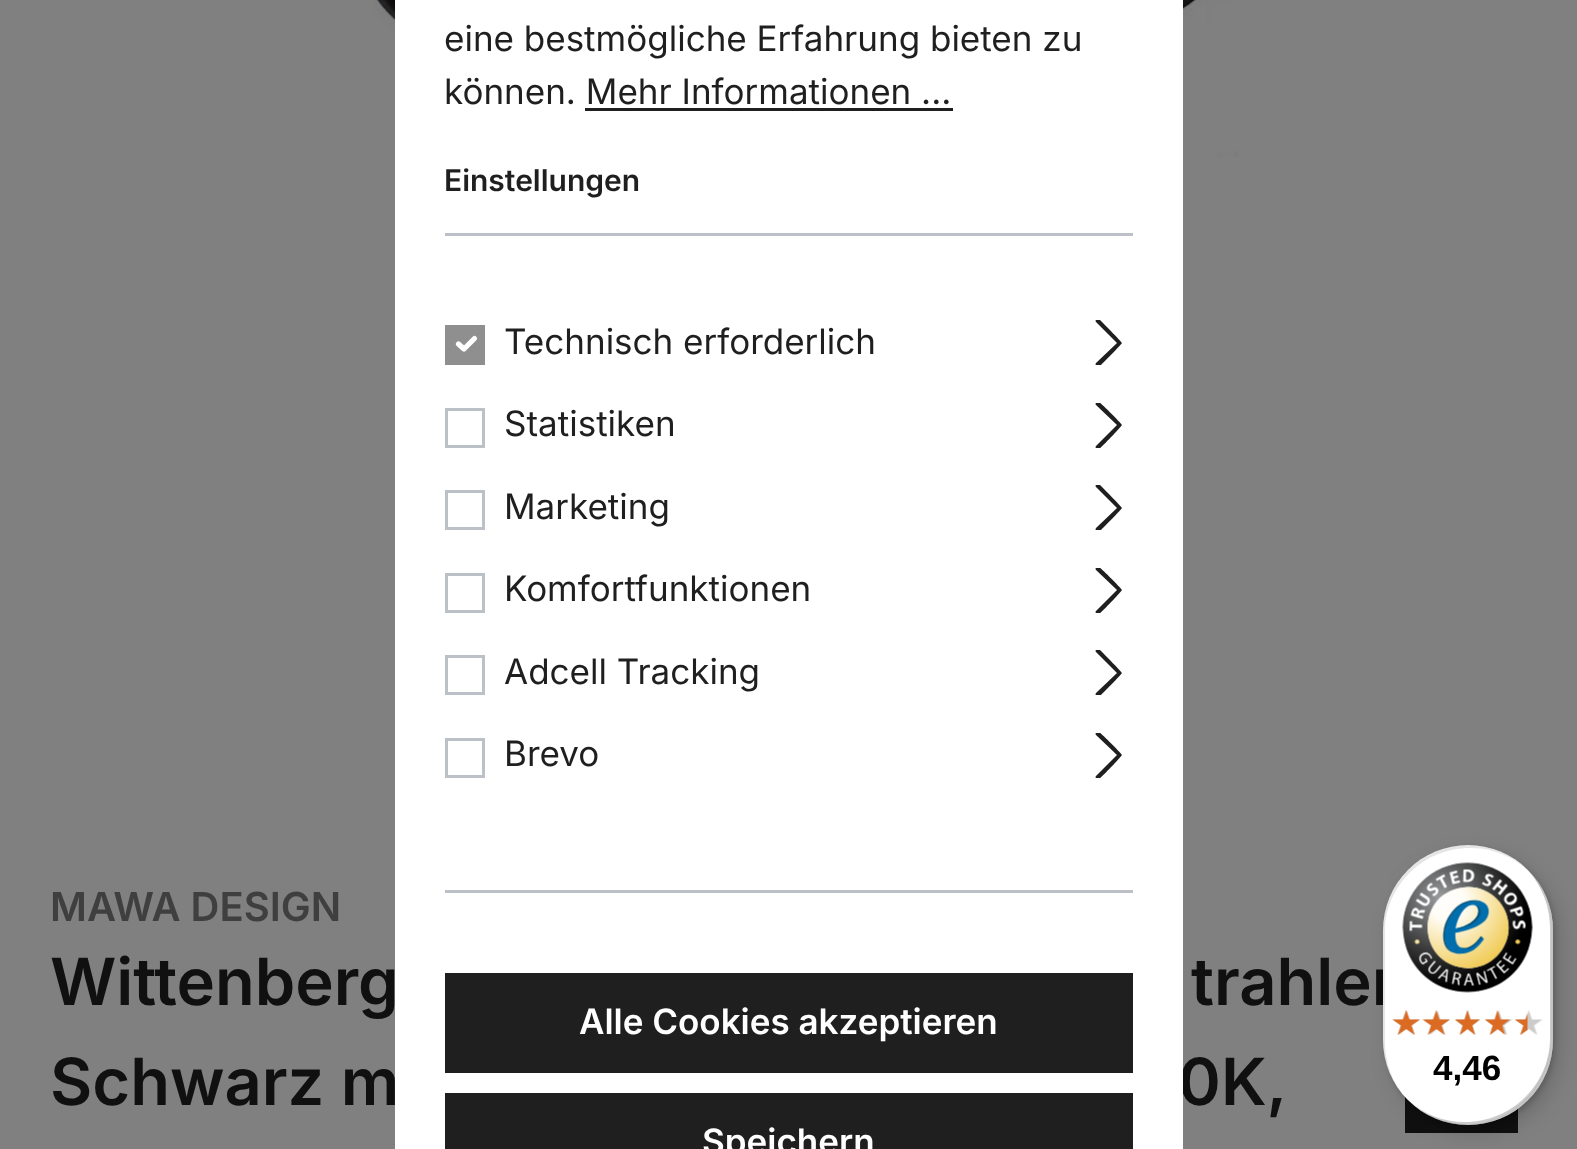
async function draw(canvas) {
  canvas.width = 1577;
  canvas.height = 1149;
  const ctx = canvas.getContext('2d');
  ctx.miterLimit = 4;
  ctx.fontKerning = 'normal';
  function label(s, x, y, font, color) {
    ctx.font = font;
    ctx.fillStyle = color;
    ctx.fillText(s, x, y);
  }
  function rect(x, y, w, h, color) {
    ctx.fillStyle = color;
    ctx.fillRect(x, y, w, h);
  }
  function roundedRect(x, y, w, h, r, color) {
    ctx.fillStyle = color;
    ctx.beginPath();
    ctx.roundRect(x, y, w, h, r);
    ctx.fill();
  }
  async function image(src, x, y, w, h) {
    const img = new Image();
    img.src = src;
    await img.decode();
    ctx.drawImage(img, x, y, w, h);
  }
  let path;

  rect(0, 0, 1577, 1149, '#808080');
  await image('assets/img1.png', 372, 0, 866, 157);
  label('0K,', 1178, 1105, '600 65px Inter', '#101010');
  rect(395, 0, 788, 1149, '#fff');
  rect(445, 233, 688, 3, '#bcc1c7');
  label('eine bestmögliche Erfahrung bieten zu', 444, 51, '35px Inter', '#1f1f1f');
  label('können. Mehr Informationen ...', 444, 104, '35px Inter', '#1f1f1f');
  rect(585, 108, 368, 3, '#1f1f1f');
  label('Einstellungen', 444, 191, '600 30px Inter', '#1f1f1f');
  rect(445, 890, 688, 3, '#bcc1c7');
  rect(445, 325, 40, 40, '#8f8f8f');
  path = new Path2D('M458.5 344L464 349L474.5 338.5');
  ctx.strokeStyle = '#fff';
  ctx.lineWidth = 5.2;
  ctx.lineCap = 'round';
  ctx.lineJoin = 'round';
  ctx.stroke(path);
  label('Technisch erforderlich', 504, 354, '35px Inter', '#1f1f1f');
  ctx.save();
  ctx.beginPath();
  ctx.rect(1085, 320, 48, 45);
  ctx.clip();
  path = new Path2D('M1117 343L1096 363C1095 365 1096 367 1097 367H1099C1101 365 1122 344 1122 343C1122 342 1101 321 1099 319H1097C1096 319 1095 321 1096 322Z');
  ctx.fill(path, 'evenodd');
  ctx.restore();
  ctx.strokeStyle = '#bcc1c7';
  ctx.lineWidth = 3;
  ctx.lineJoin = 'miter';
  ctx.strokeRect(446.5, 409.5, 37, 37);
  label('Statistiken', 504, 436, '35px Inter', '#1f1f1f');
  ctx.save();
  ctx.beginPath();
  ctx.rect(1085, 403, 48, 45);
  ctx.clip();
  path = new Path2D('M1117 425L1096 446C1095 447 1096 449 1097 449H1099C1101 448 1122 426 1122 425C1122 424 1101 403 1099 402L1097 401C1096 402 1095 404 1096 405Z');
  ctx.fill(path, 'evenodd');
  ctx.restore();
  ctx.strokeRect(446.5, 491.5, 37, 37);
  label('Marketing', 504, 519, '35px Inter', '#1f1f1f');
  ctx.save();
  ctx.beginPath();
  ctx.rect(1085, 485, 48, 45);
  ctx.clip();
  path = new Path2D('M1117 508L1096 528C1095 530 1096 532 1097 532H1099C1101 530 1122 509 1122 508C1122 507 1101 486 1099 484H1097C1096 484 1095 486 1096 487Z');
  ctx.fill(path, 'evenodd');
  ctx.restore();
  ctx.strokeRect(446.5, 574.5, 37, 37);
  label('Komfortfunktionen', 504, 601, '35px Inter', '#1f1f1f');
  ctx.save();
  ctx.beginPath();
  ctx.rect(1085, 568, 48, 45);
  ctx.clip();
  path = new Path2D('M1117 590L1096 611C1095 612 1096 614 1097 614H1099C1101 613 1122 591 1122 590C1122 589 1101 568 1099 567L1097 566C1096 567 1095 569 1096 570Z');
  ctx.fill(path, 'evenodd');
  ctx.restore();
  ctx.strokeRect(446.5, 656.5, 37, 37);
  label('Adcell Tracking', 504, 684, '35px Inter', '#1f1f1f');
  ctx.save();
  ctx.beginPath();
  ctx.rect(1085, 650, 48, 45);
  ctx.clip();
  path = new Path2D('M1117 673L1096 693C1095 695 1096 697 1097 697H1099C1101 695 1122 674 1122 673C1122 672 1101 651 1099 649H1097C1096 649 1095 651 1096 652Z');
  ctx.fill(path, 'evenodd');
  ctx.restore();
  ctx.strokeRect(446.5, 739.5, 37, 37);
  label('Brevo', 504, 766, '35px Inter', '#1f1f1f');
  ctx.save();
  ctx.beginPath();
  ctx.rect(1085, 733, 48, 45);
  ctx.clip();
  path = new Path2D('M1117 755L1096 776C1095 777 1096 779 1097 779H1099C1101 778 1122 756 1122 755C1122 754 1101 733 1099 732L1097 731C1096 732 1095 734 1096 735Z');
  ctx.fill(path, 'evenodd');
  ctx.restore();
  rect(445, 973, 688, 100, '#1f1f1f');
  label('Alle Cookies akzeptieren', 579, 1034, '600 35px Inter', '#fff');
  rect(445, 1093, 688, 56, '#1f1f1f');
  label('Speichern', 702, 1154, '600 35px Inter', '#fff');
  label('MAWA DESIGN', 50, 921, '600 40px Inter', '#3f3f3f');
  label('Wittenberg', 50, 1005, '600 65px Inter', '#101010');
  label('trahler', 1191, 1005, '600 65px Inter', '#101010');
  label('Schwarz m', 50, 1105, '600 65px Inter', '#101010');
  rect(1405, 1097, 113, 36, '#101010');
  ctx.fillStyle = '#00000026';
  ctx.filter = 'blur(10px)';
  ctx.beginPath();
  ctx.roundRect(1390, 853, 170, 280, 85);
  ctx.fill();
  ctx.filter = 'none';
  ctx.filter = 'blur(2.5px)';
  ctx.beginPath();
  ctx.roundRect(1385, 848, 170, 280, 85);
  ctx.fill();
  ctx.filter = 'none';
  roundedRect(1383, 845, 170, 280, 85, '#fff');
  ctx.fillStyle = '#0000001a';
  path = new Path2D('M1470 848C1498 848 1522 861 1538 881C1522 859 1497 845 1468 845C1421 845 1383 883 1383 930V1040C1383 1061 1391 1080 1403 1095C1392 1080 1385 1062 1385 1042V932C1385 886 1423 848 1470 848Z');
  ctx.fill(path);
  ctx.fillStyle = '#00000033';
  path = new Path2D('M1408 1100C1423 1115 1445 1125 1468 1125C1515 1125 1553 1087 1553 1040V930C1553 904 1541 880 1522 864C1539 880 1550 903 1550 928V1038C1550 1084 1512 1122 1465 1122C1443 1122 1423 1114 1408 1100Z');
  ctx.fill(path);
  ctx.fillStyle = '#32323233';
  path = new Path2D('M1422 1112C1435 1120 1451 1125 1468 1125C1515 1125 1553 1087 1553 1040V930C1553 897 1534 868 1507 854C1533 869 1551 896 1551 928V1038C1551 1085 1513 1124 1466 1124C1450 1124 1435 1119 1422 1112Z');
  ctx.fill(path);
  ctx.fillStyle = '#ffffff4d';
  path = new Path2D('M1430 1116C1441 1122 1454 1125 1468 1125C1515 1125 1553 1087 1553 1040V930C1553 897 1534 868 1506 854C1533 868 1551 896 1551 929V1039C1551 1086 1513 1124 1466 1124C1453 1124 1441 1121 1430 1116Z');
  ctx.fill(path);
  await image('assets/img2.png', 1402, 862, 131, 131);
  await image('assets/img3.png', 1392, 1010, 28, 25);
  await image('assets/img4.png', 1425, 1010, 25, 25);
  await image('assets/img5.png', 1455, 1010, 25, 25);
  await image('assets/img6.png', 1485, 1010, 28, 25);
  await image('assets/img7.png', 1515, 1010, 28, 25);
  await image('assets/img8.png', 1392, 1010, 28, 25);
  await image('assets/img9.png', 1422, 1010, 28, 25);
  await image('assets/img10.png', 1455, 1010, 25, 25);
  await image('assets/img11.png', 1485, 1010, 25, 25);
  await image('assets/img12.png', 1515, 1014, 13, 21);
  label('4,46', 1433, 1080, 'bold 35px Liberation Sans', '#000');
}

draw(document.querySelector('canvas'));
